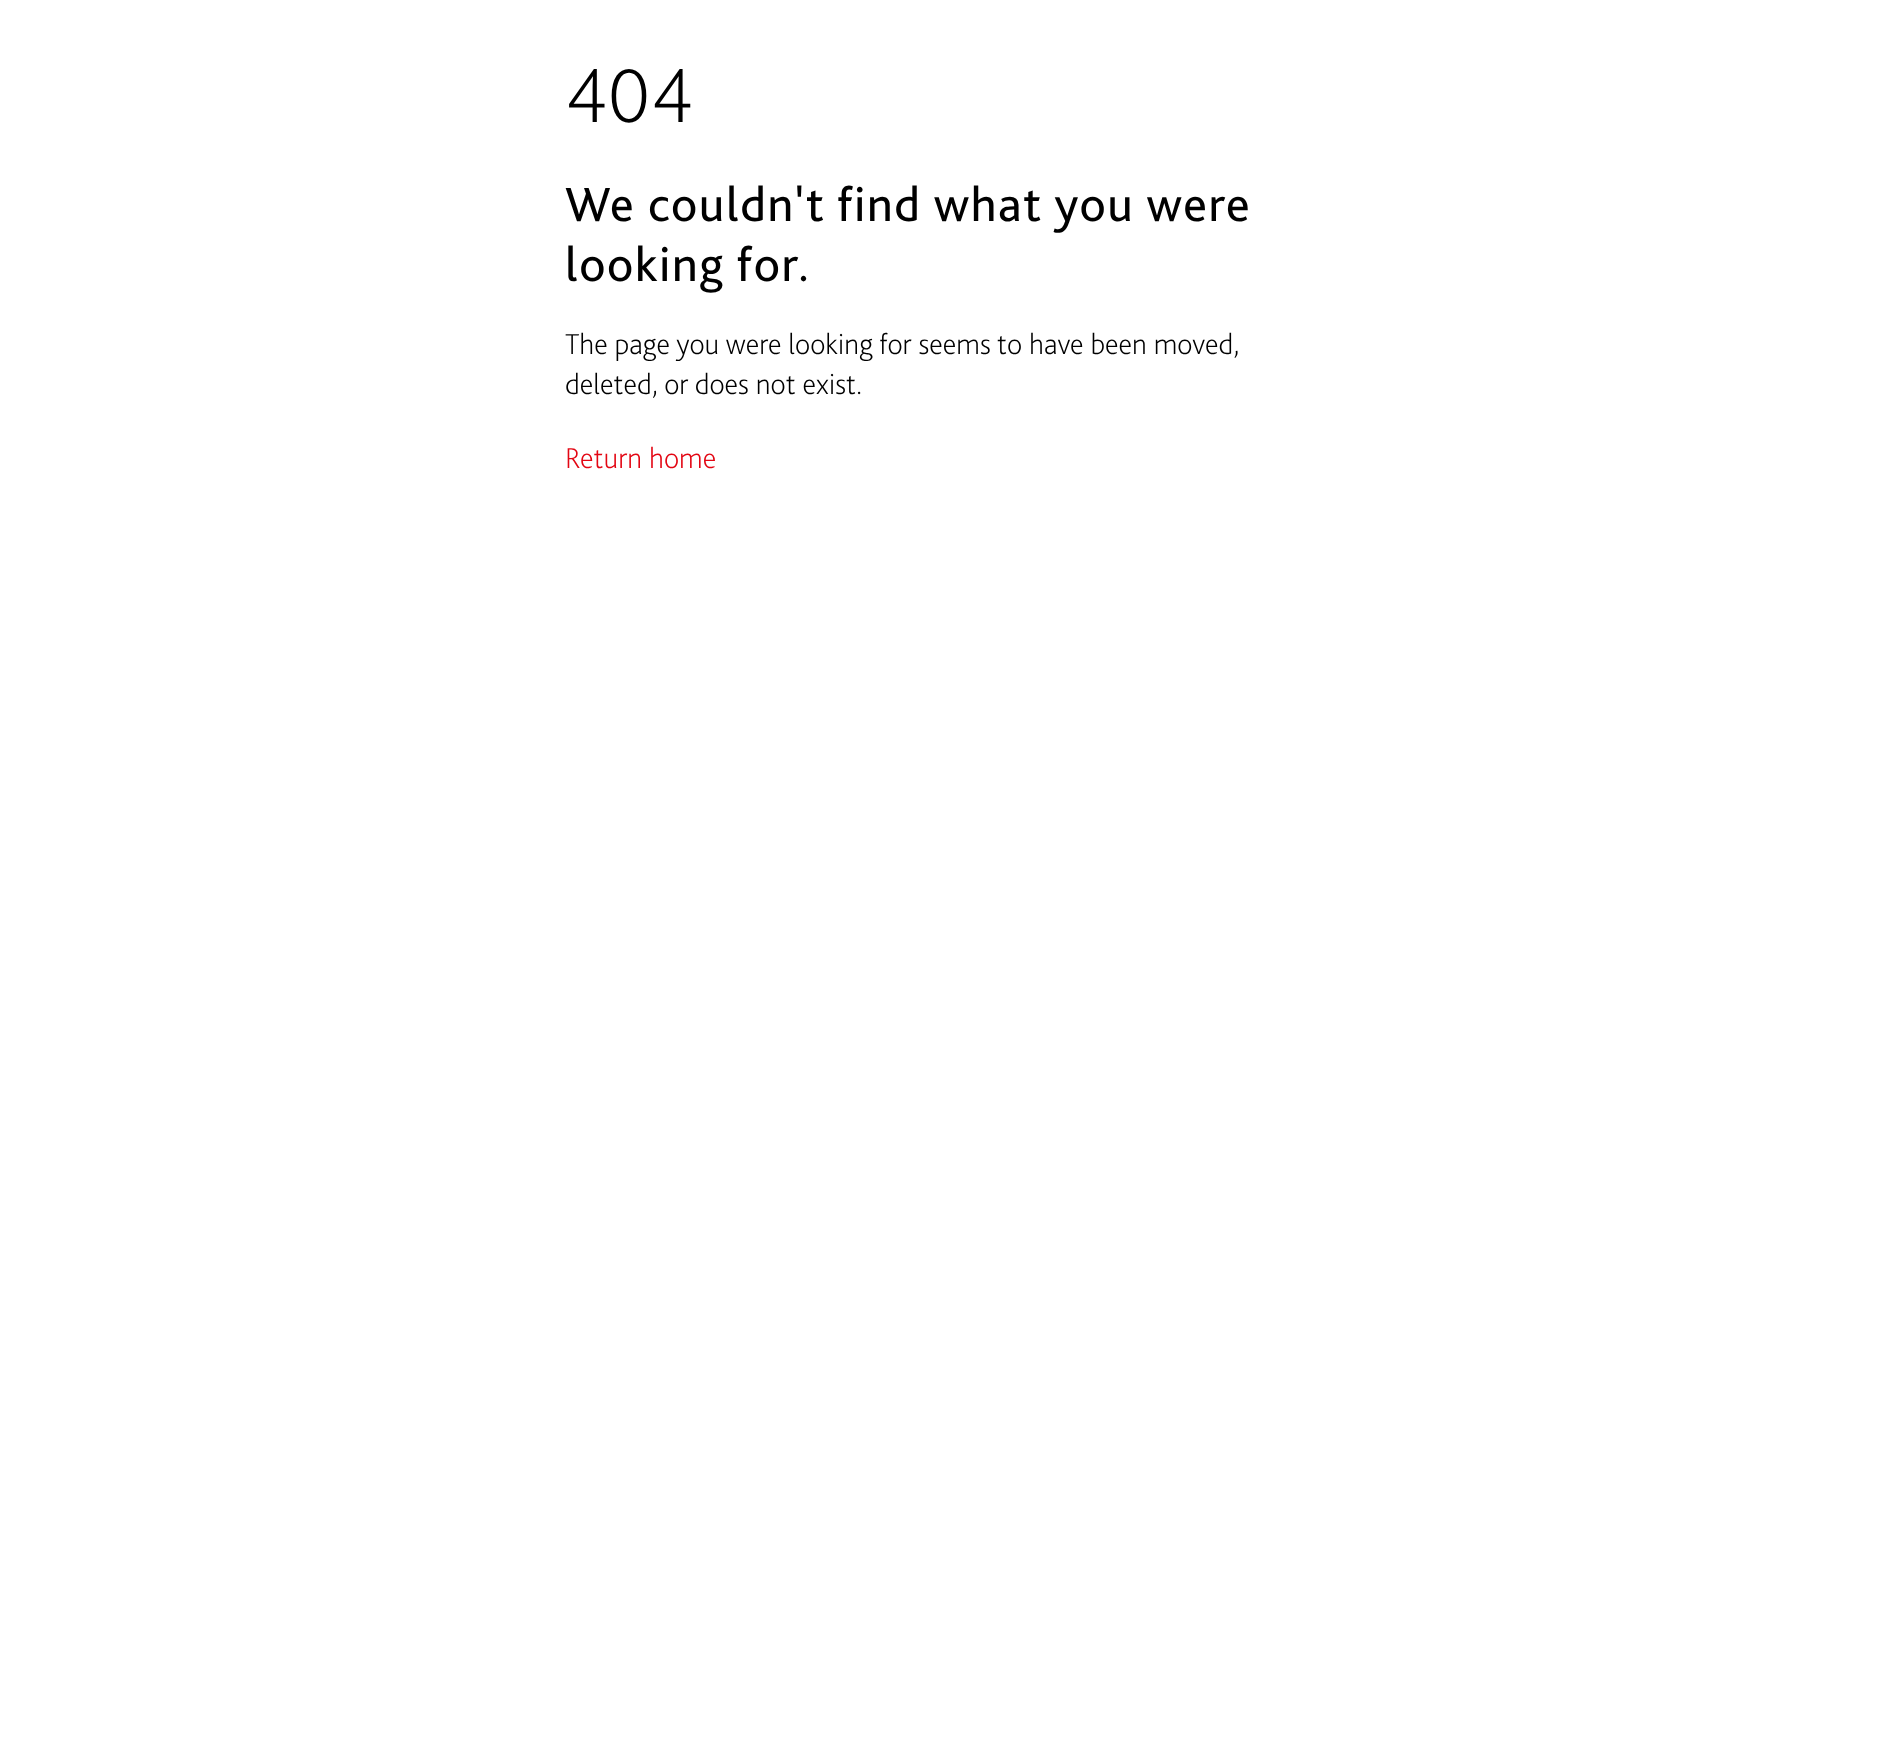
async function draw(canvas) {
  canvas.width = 1900;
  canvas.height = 1757;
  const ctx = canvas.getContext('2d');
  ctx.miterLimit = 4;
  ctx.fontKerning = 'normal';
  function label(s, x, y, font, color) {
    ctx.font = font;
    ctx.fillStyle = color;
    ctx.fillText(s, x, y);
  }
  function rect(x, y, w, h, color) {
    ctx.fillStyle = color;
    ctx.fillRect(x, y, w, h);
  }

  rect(0, 0, 1900, 1757, '#fff');
  label('404', 565, 122, '200 80px "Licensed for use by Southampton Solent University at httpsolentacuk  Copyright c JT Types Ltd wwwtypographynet"', '#000');
  ctx.letterSpacing = '1.5px';
  label('We couldn\'t find what you were', 565, 221, '50px "Licensed for use by Southampton Solent University at httpsolentacuk  Copyright c JT Types Ltd wwwtypographynet"', '#000');
  label('looking for.', 565, 281, '50px "Licensed for use by Southampton Solent University at httpsolentacuk  Copyright c JT Types Ltd wwwtypographynet"', '#000');
  ctx.letterSpacing = '0px';
  label('The page you were looking for seems to have been moved,', 565, 354, '200 30px "Licensed for use by Southampton Solent University at httpsolentacuk  Copyright c JT Types Ltd wwwtypographynet"', '#000');
  label('deleted, or does not exist.', 565, 394, '200 30px "Licensed for use by Southampton Solent University at httpsolentacuk  Copyright c JT Types Ltd wwwtypographynet"', '#000');
  label('Return home', 565, 468, '200 30px "Licensed for use by Southampton Solent University at httpsolentacuk  Copyright c JT Types Ltd wwwtypographynet"', '#e30613');
}

draw(document.querySelector('canvas'));
